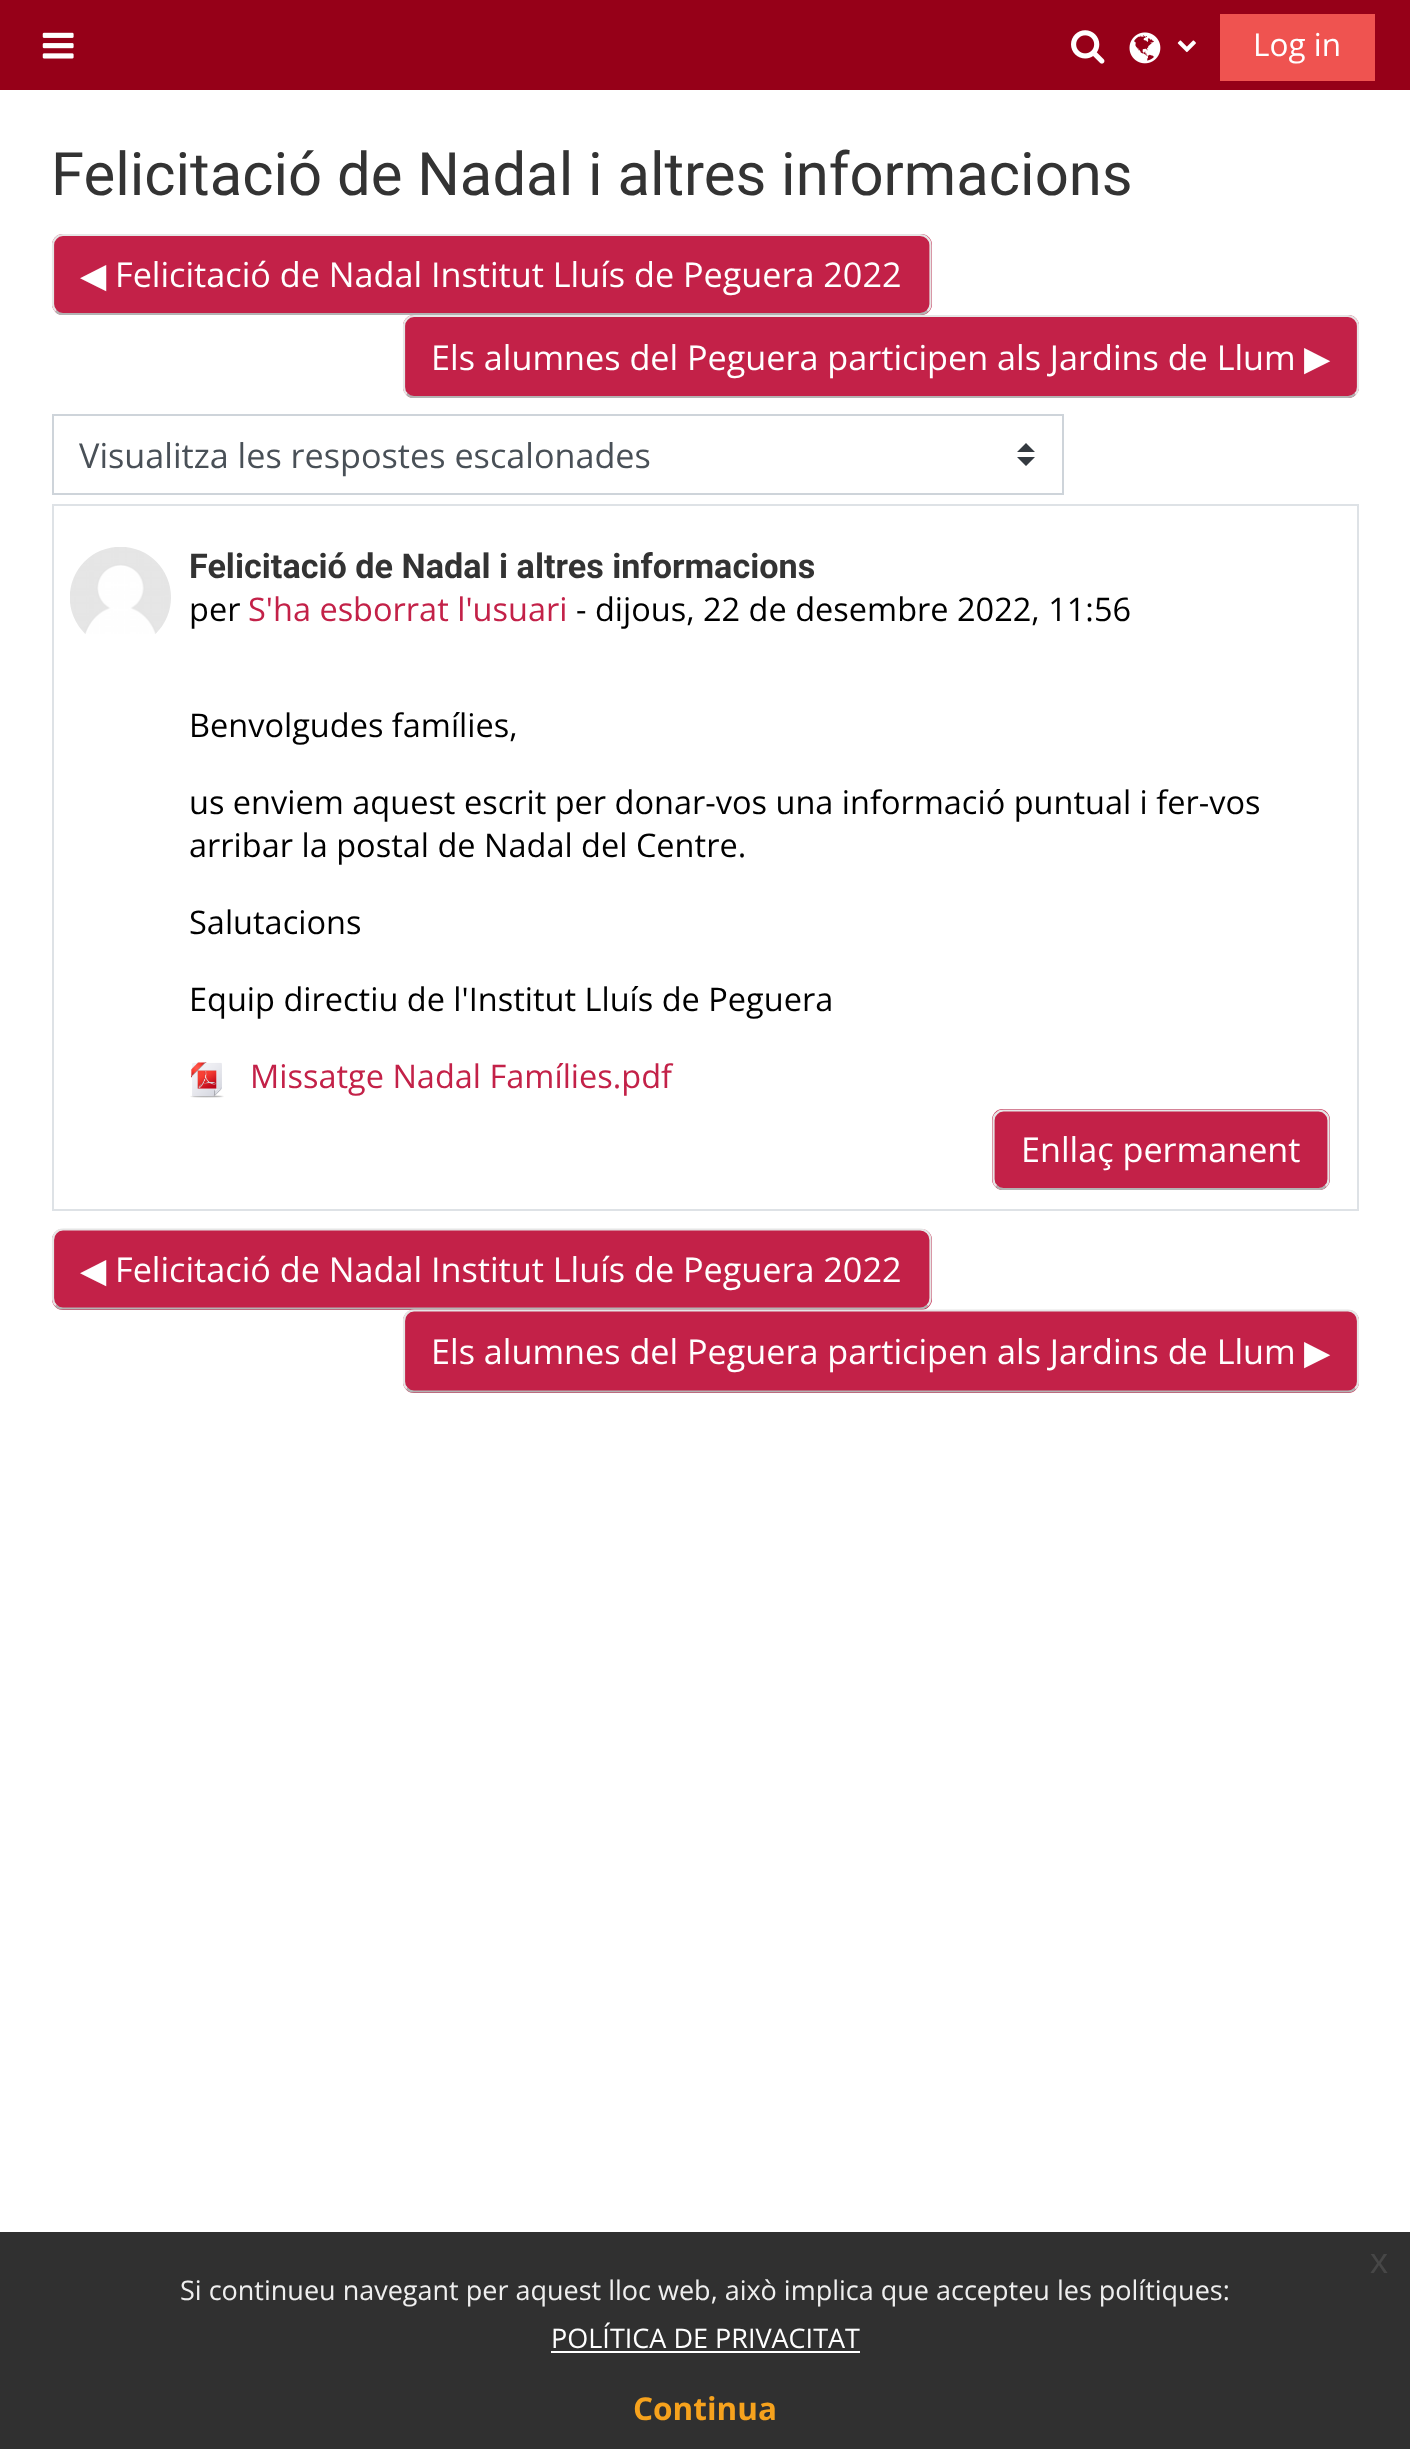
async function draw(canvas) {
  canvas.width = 1410;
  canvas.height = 2449;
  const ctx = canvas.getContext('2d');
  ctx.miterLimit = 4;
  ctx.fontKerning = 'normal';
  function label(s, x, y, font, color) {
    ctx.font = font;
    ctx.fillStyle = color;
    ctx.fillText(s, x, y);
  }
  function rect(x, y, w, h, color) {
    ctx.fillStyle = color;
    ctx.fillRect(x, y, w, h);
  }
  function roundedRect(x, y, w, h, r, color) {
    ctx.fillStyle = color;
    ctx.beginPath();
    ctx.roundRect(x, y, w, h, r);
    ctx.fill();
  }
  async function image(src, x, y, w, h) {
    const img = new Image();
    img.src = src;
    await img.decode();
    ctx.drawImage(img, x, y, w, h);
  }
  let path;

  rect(0, 0, 1410, 2449, '#fff');
  rect(0, 0, 1410, 90, '#960018');
  await image('assets/img1.png', 42, 32, 32, 27);
  await image('assets/img2.png', 1071, 30, 34, 34);
  await image('assets/img3.png', 1129, 32, 32, 32);
  await image('assets/img4.png', 1177, 40, 19, 13);
  rect(1220, 14, 155, 67, '#ef5350');
  label('Log in', 1253, 56, '31.5px Open Sans', '#fff');
  label('Felicitació de Nadal i altres informacions', 51, 195, '59.8px Roboto', '#333');
  roundedRect(52, 234, 880, 81, 11, '#c32148');
  path = new Path2D('M927.5 311C925.5 313 923 314 920 314H63C60.5 314 57.5 313 56 311');
  ctx.strokeStyle = '#b3b3b3';
  ctx.lineWidth = 2.2;
  ctx.stroke(path);
  path = new Path2D('M56 311C54 309 53 306.5 53 304V245C53 242.5 54 240 56 238C57.5 236 60.5 235 63 235H920C923 235 925.5 236 927.5 238C929.5 240 930.5 242.5 930.5 245V304C930.5 306.5 929.5 309 927.5 311');
  ctx.strokeStyle = '#e6e6e6';
  ctx.stroke(path);
  label('◀︎', 80, 287, '34.2px DejaVu Sans', '#fff');
  label('Felicitació de Nadal Institut Lluís de Peguera 2022', 115, 287, '34.2px Open Sans', '#fff');
  roundedRect(403, 315, 956, 83, 11, '#c32148');
  path = new Path2D('M1355 394C1353 396 1350.5 397 1348 397H414C411.5 397 408.5 396 407 394');
  ctx.strokeStyle = '#b3b3b3';
  ctx.stroke(path);
  path = new Path2D('M407 394C405 392.5 404 389.5 404 387V326C404 323.5 405 321 407 319C408.5 317 411.5 316 414 316H1348C1350.5 316 1353 317 1355 319C1357 321 1358 323.5 1358 326V387C1358 389.5 1357 392.5 1355 394');
  ctx.strokeStyle = '#e6e6e6';
  ctx.stroke(path);
  label('Els alumnes del Peguera participen als Jardins de Llum', 431, 370, '34.2px Open Sans', '#fff');
  label('▶︎', 1304, 370, '34.2px DejaVu Sans', '#fff');
  ctx.fillStyle = '#343a40';
  path = new Path2D('M1026 443L1017 452H1035ZM1026 466L1017 457H1035Z');
  ctx.fill(path);
  ctx.strokeStyle = '#ced4da';
  ctx.lineWidth = 2;
  ctx.strokeRect(53, 415, 1010, 79);
  label('Visualitza les respostes escalonades', 79, 468, '34.2px Open Sans', '#495057');
  ctx.strokeStyle = '#dee2e6';
  ctx.strokeRect(53, 505, 1305, 705);
  await image('assets/img5.png', 70, 547, 101, 87);
  label('Felicitació de Nadal i altres informacions', 189, 578, 'bold 34.2px Roboto', '#333');
  label('per', 189, 621, '32.5px Open Sans', '#000');
  label('S\'ha esborrat l\'usuari', 248, 621, '32.5px Open Sans', '#c32148');
  label('- dijous, 22 de desembre 2022, 11:56', 576, 621, '32.5px Open Sans', '#000');
  label('Benvolgudes famílies,', 189, 737, '32.5px Open Sans', '#000');
  label('us enviem aquest escrit per donar-vos una informació puntual i fer-vos', 189, 814, '32.5px Open Sans', '#000');
  label('arribar la postal de Nadal del Centre.', 189, 857, '32.5px Open Sans', '#000');
  label('Salutacions', 189, 934, '32.5px Open Sans', '#000');
  label('Equip directiu de l\'Institut Lluís de Peguera', 189, 1011, '32.5px Open Sans', '#000');
  await image('assets/img6.png', 190, 1062, 34, 36);
  label('Missatge Nadal Famílies.pdf', 250, 1088, '32.5px Open Sans', '#c32148');
  roundedRect(992, 1109, 338, 81, 11, '#c32148');
  ctx.save();
  ctx.beginPath();
  ctx.rect(189, 704, 1152, 486);
  ctx.clip();
  path = new Path2D('M1325.5 1186C1324 1188 1321 1189 1318.5 1189H1003.5C1001 1189 998 1188 996.5 1186');
  ctx.strokeStyle = '#b3b3b3';
  ctx.lineWidth = 2.2;
  ctx.stroke(path);
  ctx.restore();
  path = new Path2D('M996.5 1186C994.5 1184.5 993.5 1181.5 993.5 1179V1120.5C993.5 1118 994.5 1115 996.5 1113.5C998 1111.5 1001 1110.5 1003.5 1110.5H1318.5C1321 1110.5 1324 1111.5 1325.5 1113.5C1327.5 1115 1328.5 1118 1328.5 1120.5V1179C1328.5 1181.5 1327.5 1184.5 1325.5 1186');
  ctx.strokeStyle = '#e6e6e6';
  ctx.lineWidth = 2.2;
  ctx.stroke(path);
  label('Enllaç permanent', 1021, 1162, '34.2px Open Sans', '#fff');
  roundedRect(52, 1229, 880, 81, 11, '#c32148');
  path = new Path2D('M927.5 1305.5C925.5 1307.5 923 1308.5 920 1308.5H63C60.5 1308.5 57.5 1307.5 56 1305.5');
  ctx.strokeStyle = '#b3b3b3';
  ctx.stroke(path);
  path = new Path2D('M56 1305.5C54 1303.5 53 1301 53 1298V1240C53 1237 54 1234.5 56 1232.5C57.5 1230.5 60.5 1229.5 63 1229.5H920C923 1229.5 925.5 1230.5 927.5 1232.5C929.5 1234.5 930.5 1237 930.5 1240V1298C930.5 1301 929.5 1303.5 927.5 1305.5');
  ctx.strokeStyle = '#e6e6e6';
  ctx.stroke(path);
  label('◀︎', 80, 1282, '34.2px DejaVu Sans', '#fff');
  label('Felicitació de Nadal Institut Lluís de Peguera 2022', 115, 1282, '34.2px Open Sans', '#fff');
  roundedRect(403, 1310, 956, 83, 11, '#c32148');
  path = new Path2D('M1355 1388.5C1353 1390.5 1350.5 1391.5 1348 1391.5H414C411.5 1391.5 408.5 1390.5 407 1388.5');
  ctx.strokeStyle = '#b3b3b3';
  ctx.stroke(path);
  path = new Path2D('M407 1388.5C405 1387 404 1384 404 1381.5V1321C404 1318 405 1315.5 407 1313.5C408.5 1311.5 411.5 1310.5 414 1310.5H1348C1350.5 1310.5 1353 1311.5 1355 1313.5C1357 1315.5 1358 1318 1358 1321V1381.5C1358 1384 1357 1387 1355 1388.5');
  ctx.strokeStyle = '#e6e6e6';
  ctx.stroke(path);
  label('Els alumnes del Peguera participen als Jardins de Llum', 431, 1364, '34.2px Open Sans', '#fff');
  label('▶︎', 1304, 1364, '34.2px DejaVu Sans', '#fff');
  rect(0, 2232, 1410, 217, '#303030');
  label('x', 1370, 2273, '36px Liberation Sans', '#474747');
  label('Si continueu navegant per aquest lloc web, això implica que accepteu les polítiques:', 180, 2300, '27px Open Sans', '#efefef');
  label('POLÍTICA DE PRIVACITAT', 551, 2348, '27px Open Sans', '#fff');
  rect(551, 2351, 309, 2, '#fff');
  label('Continua', 633, 2420, 'bold 31.5px Open Sans', '#f6a21d');
}

draw(document.querySelector('canvas'));
